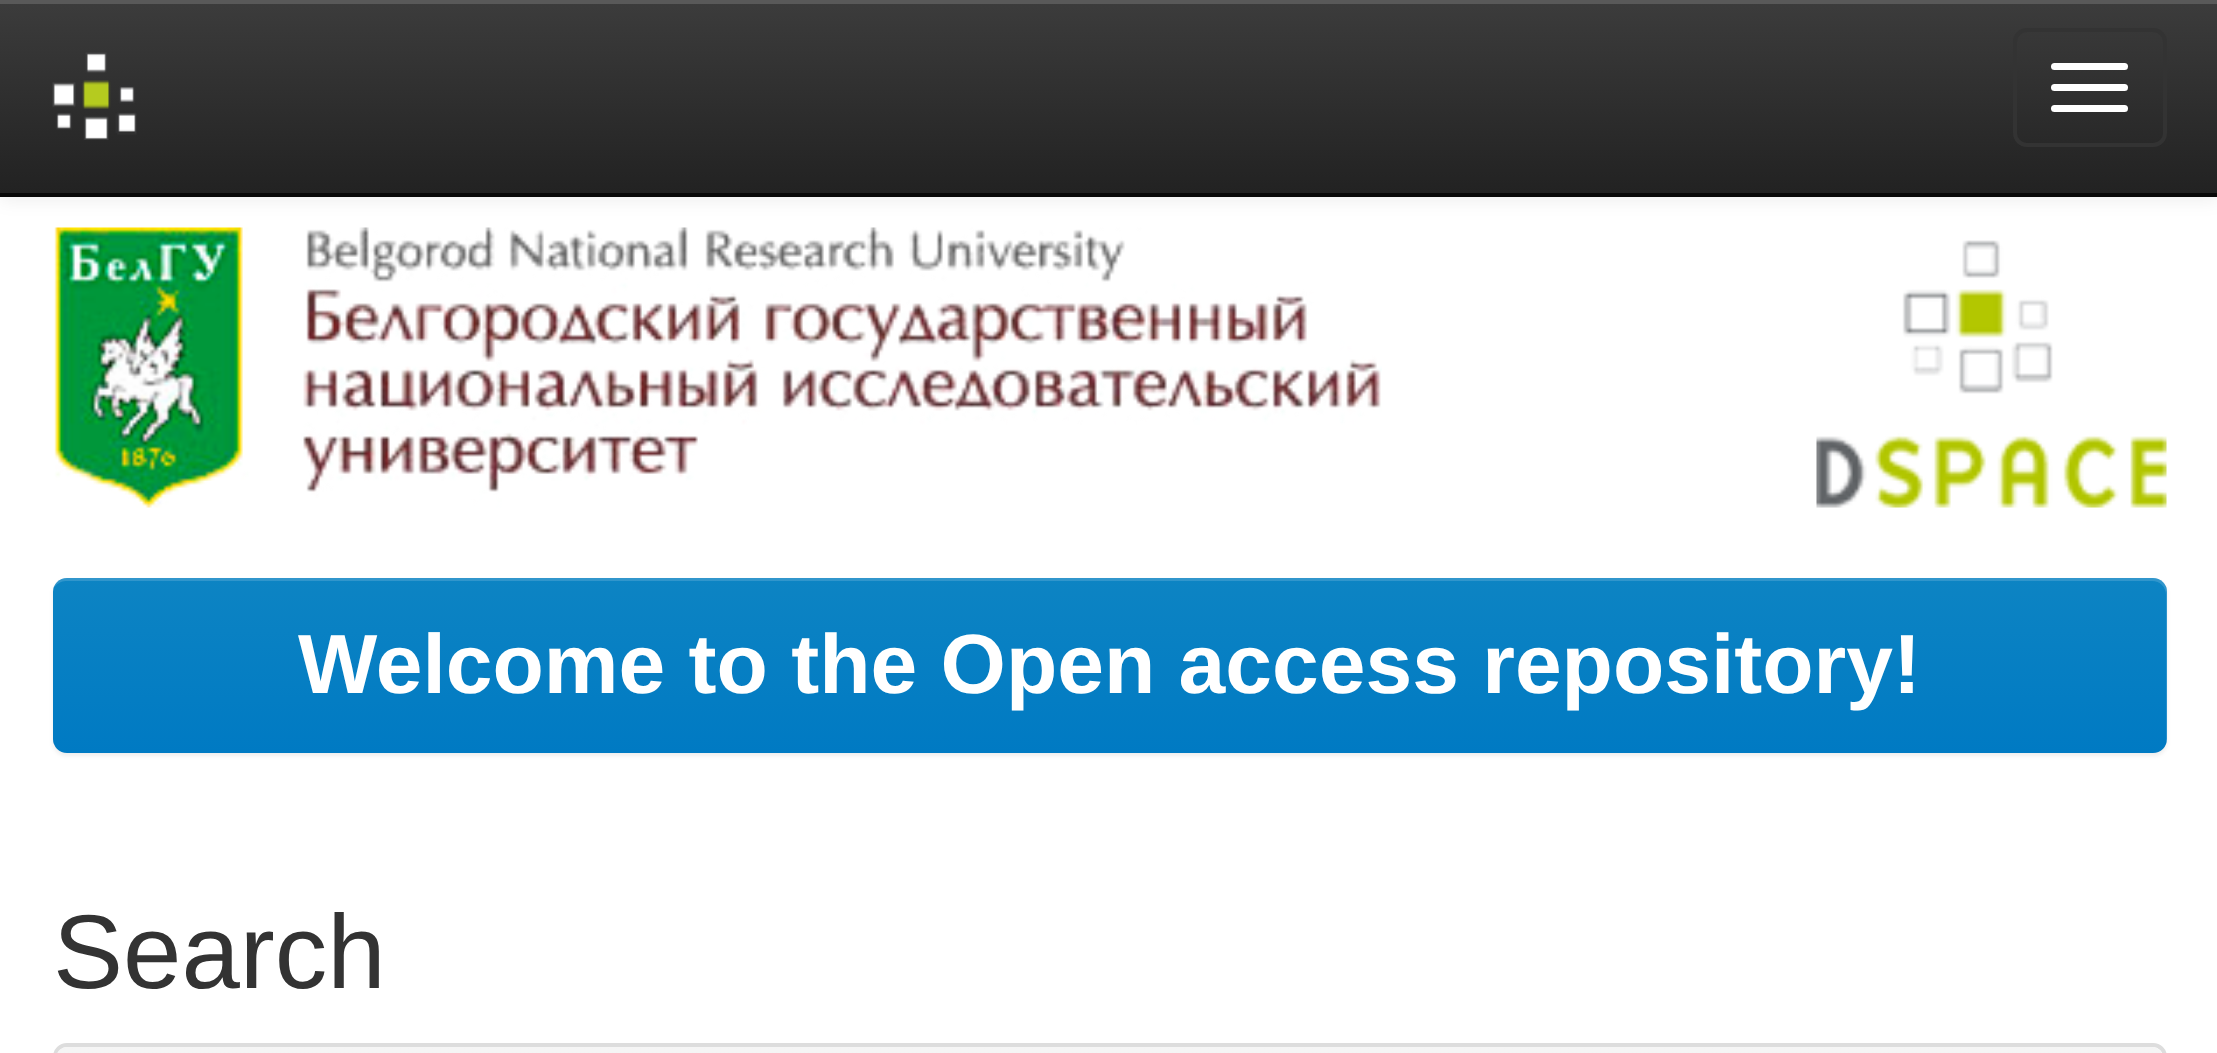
async function draw(canvas) {
  canvas.width = 2217;
  canvas.height = 1053;
  const ctx = canvas.getContext('2d');
  ctx.miterLimit = 4;
  ctx.fontKerning = 'normal';
  function label(s, x, y, font, color) {
    ctx.font = font;
    ctx.fillStyle = color;
    ctx.fillText(s, x, y);
  }
  function rect(x, y, w, h, color) {
    ctx.fillStyle = color;
    ctx.fillRect(x, y, w, h);
  }
  function roundedRect(x, y, w, h, r, color) {
    ctx.fillStyle = color;
    ctx.beginPath();
    ctx.roundRect(x, y, w, h, r);
    ctx.fill();
  }
  async function image(src, x, y, w, h) {
    const img = new Image();
    img.src = src;
    await img.decode();
    ctx.drawImage(img, x, y, w, h);
  }
  let gradient, path;

  rect(0, 0, 2217, 1053, '#fff');
  await image('assets/img2.png', 54, 227, 1328, 281);
  ctx.fillStyle = '#00000012';
  ctx.filter = 'blur(9px)';
  ctx.beginPath();
  ctx.rect(0, 4, 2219, 196);
  ctx.fill();
  ctx.filter = 'none';
  gradient = ctx.createLinearGradient(1110, 0, 1110, 193);
  gradient.addColorStop(0, '#3c3c3c');
  gradient.addColorStop(1, '#222');
  ctx.fillStyle = gradient;
  ctx.fillRect(0, 4, 2217, 189);
  rect(0, 0, 2217, 4, '#595959');
  rect(0, 193, 2217, 4, '#080808');
  await image('assets/img1.png', 52, 52, 85, 88);
  ctx.beginPath();
  ctx.roundRect(2015, 30, 150, 115, 12);
  ctx.strokeStyle = '#333';
  ctx.lineWidth = 4;
  ctx.stroke();
  roundedRect(2051, 63, 77, 7, 3.5, '#fff');
  roundedRect(2051, 84, 77, 7, 3.5, '#fff');
  roundedRect(2051, 105, 77, 7, 3.5, '#fff');
  await image('assets/img3.png', 1816, 240, 351, 268);
  ctx.fillStyle = '#00000012';
  ctx.filter = 'blur(2px)';
  ctx.beginPath();
  ctx.roundRect(53, 581, 2114, 175, 14);
  ctx.fill();
  ctx.filter = 'none';
  gradient = ctx.createLinearGradient(1110, 577, 1110, 753);
  gradient.addColorStop(0, '#0d84c3');
  gradient.addColorStop(1, '#007ac3');
  ctx.fillStyle = gradient;
  ctx.beginPath();
  ctx.roundRect(53, 578, 2114, 175, 14);
  ctx.fill();
  ctx.fillStyle = '#ffffff26';
  path = new Path2D('M66 581H2152C2160 581 2166 587 2166 595V745C2167 743 2167 741 2167 739V592C2167 584 2161 578 2153 578H67C60 578 55 583 53 589C56 584 61 581 66 581Z');
  ctx.fill(path);
  label('Welcome to the Open access repository!', 298, 693, 'bold 84px Liberation Sans', '#fff');
  label('Search', 53, 988, '105px Liberation Sans', '#333');
  ctx.beginPath();
  ctx.roundRect(55, 1045, 2110, 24, 12);
  ctx.strokeStyle = '#ddd';
  ctx.stroke();
  gradient = ctx.createLinearGradient(1110, 1047, 1110, 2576);
  gradient.addColorStop(0, '#f5f5f5');
  gradient.addColorStop(1, '#e8e8e8');
  ctx.fillStyle = gradient;
  path = new Path2D('M67 1047H2152C2158 1047 2163 1052 2163 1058V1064H56V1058C56 1052 61 1047 67 1047Z');
  ctx.fill(path);
}

draw(document.querySelector('canvas'));
